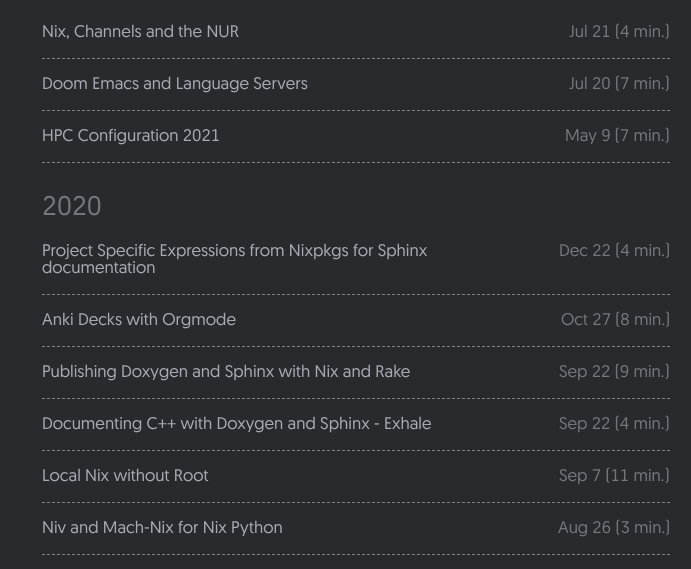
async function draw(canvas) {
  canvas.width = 691;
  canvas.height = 569;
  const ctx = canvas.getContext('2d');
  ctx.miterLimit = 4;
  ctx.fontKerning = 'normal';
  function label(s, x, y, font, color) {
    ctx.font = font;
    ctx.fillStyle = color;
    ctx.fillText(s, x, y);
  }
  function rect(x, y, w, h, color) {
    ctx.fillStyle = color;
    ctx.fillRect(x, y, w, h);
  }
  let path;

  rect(0, 0, 691, 569, '#292a2d');
  path = new Path2D('M42 58.5H670');
  ctx.strokeStyle = '#808080';
  ctx.setLineDash([3, 2]);
  ctx.stroke(path);
  label('Nix, Channels and the NUR', 42, 37, '16.9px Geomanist', '#a9a9b3');
  label('Jul 21 (4 min.)', 569, 37, '16.9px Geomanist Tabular', '#76767d');
  path = new Path2D('M42 110.5H670');
  ctx.stroke(path);
  label('Doom Emacs and Language Servers', 42, 89, '16.9px Geomanist', '#a9a9b3');
  label('Jul 20 (7 min.)', 569, 89, '16.9px Geomanist Tabular', '#76767d');
  path = new Path2D('M42 162.5H670');
  ctx.stroke(path);
  label('HPC Configuration 2021', 42, 141, '16.9px Geomanist Tabular', '#a9a9b3');
  label('May 9 (7 min.)', 565, 141, '16.9px Geomanist Tabular', '#76767d');
  label('2020', 42, 215, '27px Geomanist Tabular', '#76767d');
  path = new Path2D('M42 294.5H670');
  ctx.stroke(path);
  label('Project Specific Expressions from Nixpkgs for Sphinx', 42, 256, '16.9px Geomanist', '#a9a9b3');
  label('documentation', 42, 273, '16.9px Geomanist', '#a9a9b3');
  label('Dec 22 (4 min.)', 559, 256, '16.9px Geomanist Tabular', '#76767d');
  path = new Path2D('M42 346.5H670');
  ctx.stroke(path);
  label('Anki Decks with Orgmode', 42, 325, '16.9px Geomanist', '#a9a9b3');
  label('Oct 27 (8 min.)', 561, 325, '16.9px Geomanist Tabular', '#76767d');
  path = new Path2D('M42 398.5H670');
  ctx.stroke(path);
  label('Publishing Doxygen and Sphinx with Nix and Rake', 42, 377, '16.9px Geomanist', '#a9a9b3');
  label('Sep 22 (9 min.)', 559, 377, '16.9px Geomanist Tabular', '#76767d');
  path = new Path2D('M42 450.5H670');
  ctx.stroke(path);
  label('Documenting C++ with Doxygen and Sphinx - Exhale', 42, 429, '16.9px Geomanist', '#a9a9b3');
  label('Sep 22 (4 min.)', 559, 429, '16.9px Geomanist Tabular', '#76767d');
  path = new Path2D('M42 502.5H670');
  ctx.stroke(path);
  label('Local Nix without Root', 42, 481, '16.9px Geomanist', '#a9a9b3');
  label('Sep 7 (11 min.)', 559, 481, '16.9px Geomanist Tabular', '#76767d');
  path = new Path2D('M42 554.5H670');
  ctx.stroke(path);
  label('Niv and Mach-Nix for Nix Python', 42, 533, '16.9px Geomanist', '#a9a9b3');
  label('Aug 26 (3 min.)', 558, 533, '16.9px Geomanist Tabular', '#76767d');
}

draw(document.querySelector('canvas'));
